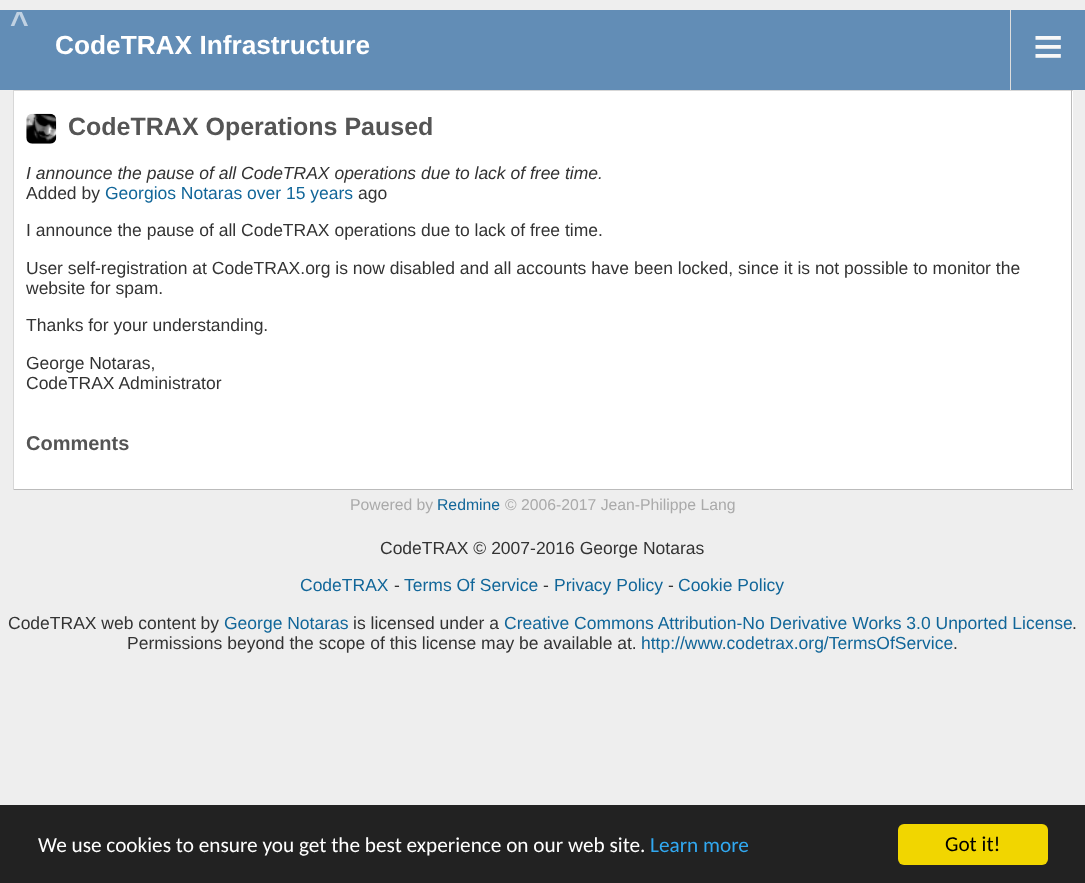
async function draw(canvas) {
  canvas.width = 1085;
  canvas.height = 883;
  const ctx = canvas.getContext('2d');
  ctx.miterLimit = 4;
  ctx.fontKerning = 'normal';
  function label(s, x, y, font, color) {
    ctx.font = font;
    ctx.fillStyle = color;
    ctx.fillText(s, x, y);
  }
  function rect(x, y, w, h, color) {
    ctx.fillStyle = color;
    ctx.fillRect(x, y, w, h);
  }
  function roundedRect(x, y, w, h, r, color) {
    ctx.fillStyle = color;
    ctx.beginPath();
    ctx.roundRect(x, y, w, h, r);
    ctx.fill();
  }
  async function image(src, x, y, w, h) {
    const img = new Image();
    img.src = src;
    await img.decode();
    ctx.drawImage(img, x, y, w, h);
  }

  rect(0, 0, 1085, 883, '#eee');
  rect(0, 10, 1085, 80, '#628db6');
  ctx.letterSpacing = '5px';
  label('^', 10, 34, 'bold 32px Liberation Sans', '#c0d1e2');
  ctx.letterSpacing = '0px';
  label('CodeTRAX Infrastructure', 55, 54, 'bold 26.25px Liberation Sans', '#fff');
  rect(1010, 10, 1, 80, '#ddd');
  label('≡', 1033, 64, '52px Liberation Sans', '#f8f8f8');
  rect(14, 91, 1059, 398, '#fff');
  rect(13, 90, 1060, 1, '#d7d7d7');
  rect(1071, 90, 1, 400, '#bbb');
  rect(13, 489, 1060, 1, '#bbb');
  rect(13, 90, 1, 400, '#d7d7d7');
  await image('assets/img1.png', 26, 113, 31, 31);
  label('CodeTRAX Operations Paused', 68, 135, 'bold 25px Liberation Sans', '#555');
  label('I announce the pause of all CodeTRAX operations due to lack of free time.', 26, 179, 'italic 17.5px Liberation Sans', '#333');
  label('Added by', 26, 199, '17.5px Liberation Sans', '#333');
  label('Georgios Notaras over 15 years', 105, 199, '17.5px Liberation Sans', '#169');
  label('ago', 358, 199, '17.5px Liberation Sans', '#333');
  label('I announce the pause of all CodeTRAX operations due to lack of free time.', 26, 236, '17.5px Liberation Sans', '#333');
  label('User self-registration at CodeTRAX.org is now disabled and all accounts have been locked, since it is not possible to monitor the', 26, 274, '17.5px Liberation Sans', '#333');
  label('website for spam.', 26, 294, '17.5px Liberation Sans', '#333');
  label('Thanks for your understanding.', 26, 331, '17.5px Liberation Sans', '#333');
  label('George Notaras,', 26, 369, '17.5px Liberation Sans', '#333');
  label('CodeTRAX Administrator', 26, 389, '17.5px Liberation Sans', '#333');
  label('Comments', 26, 450, 'bold 20px Liberation Sans', '#555');
  label('Powered by', 350, 510, '15.75px Liberation Sans', '#aaa');
  label('Redmine', 437, 510, '15.75px Liberation Sans', '#169');
  label('© 2006-2017 Jean-Philippe Lang', 505, 510, '15.75px Liberation Sans', '#aaa');
  label('CodeTRAX © 2007-2016 George Notaras', 380, 554, '17.5px Liberation Sans', '#333');
  label('CodeTRAX', 300, 591, '17.5px Liberation Sans', '#169');
  label('-', 394, 591, '17.5px Liberation Sans', '#333');
  label('Terms Of Service', 404, 591, '17.5px Liberation Sans', '#169');
  label('-', 543, 591, '17.5px Liberation Sans', '#333');
  label('Privacy Policy', 554, 591, '17.5px Liberation Sans', '#169');
  label('-', 668, 591, '17.5px Liberation Sans', '#333');
  label('Cookie Policy', 678, 591, '17.5px Liberation Sans', '#169');
  label('CodeTRAX web content by', 8, 629, '17.5px Liberation Sans', '#333');
  label('George Notaras', 224, 629, '17.5px Liberation Sans', '#169');
  label('is licensed under a', 353, 629, '17.5px Liberation Sans', '#333');
  label('Creative Commons Attribution-No Derivative Works 3.0 Unported License', 504, 629, '17.5px Liberation Sans', '#169');
  label('.', 1072, 629, '17.5px Liberation Sans', '#333');
  label('Permissions beyond the scope of this license may be available at.', 127, 649, '17.5px Liberation Sans', '#333');
  label('http://www.codetrax.org/TermsOfService', 641, 649, '17.5px Liberation Sans', '#169');
  label('.', 953, 649, '17.5px Liberation Sans', '#333');
  rect(0, 805, 1085, 78, '#222');
  label('We use cookies to ensure you get the best experience on our web site.', 38, 852, '21.25px Carlito', '#fff');
  label('Learn more', 650, 852, '21.25px Carlito', '#31a8f0');
  roundedRect(898, 824, 150, 41, 6, '#f1d600');
  label('Got it!', 945, 851, '21.25px Carlito', '#000');
}

draw(document.querySelector('canvas'));
